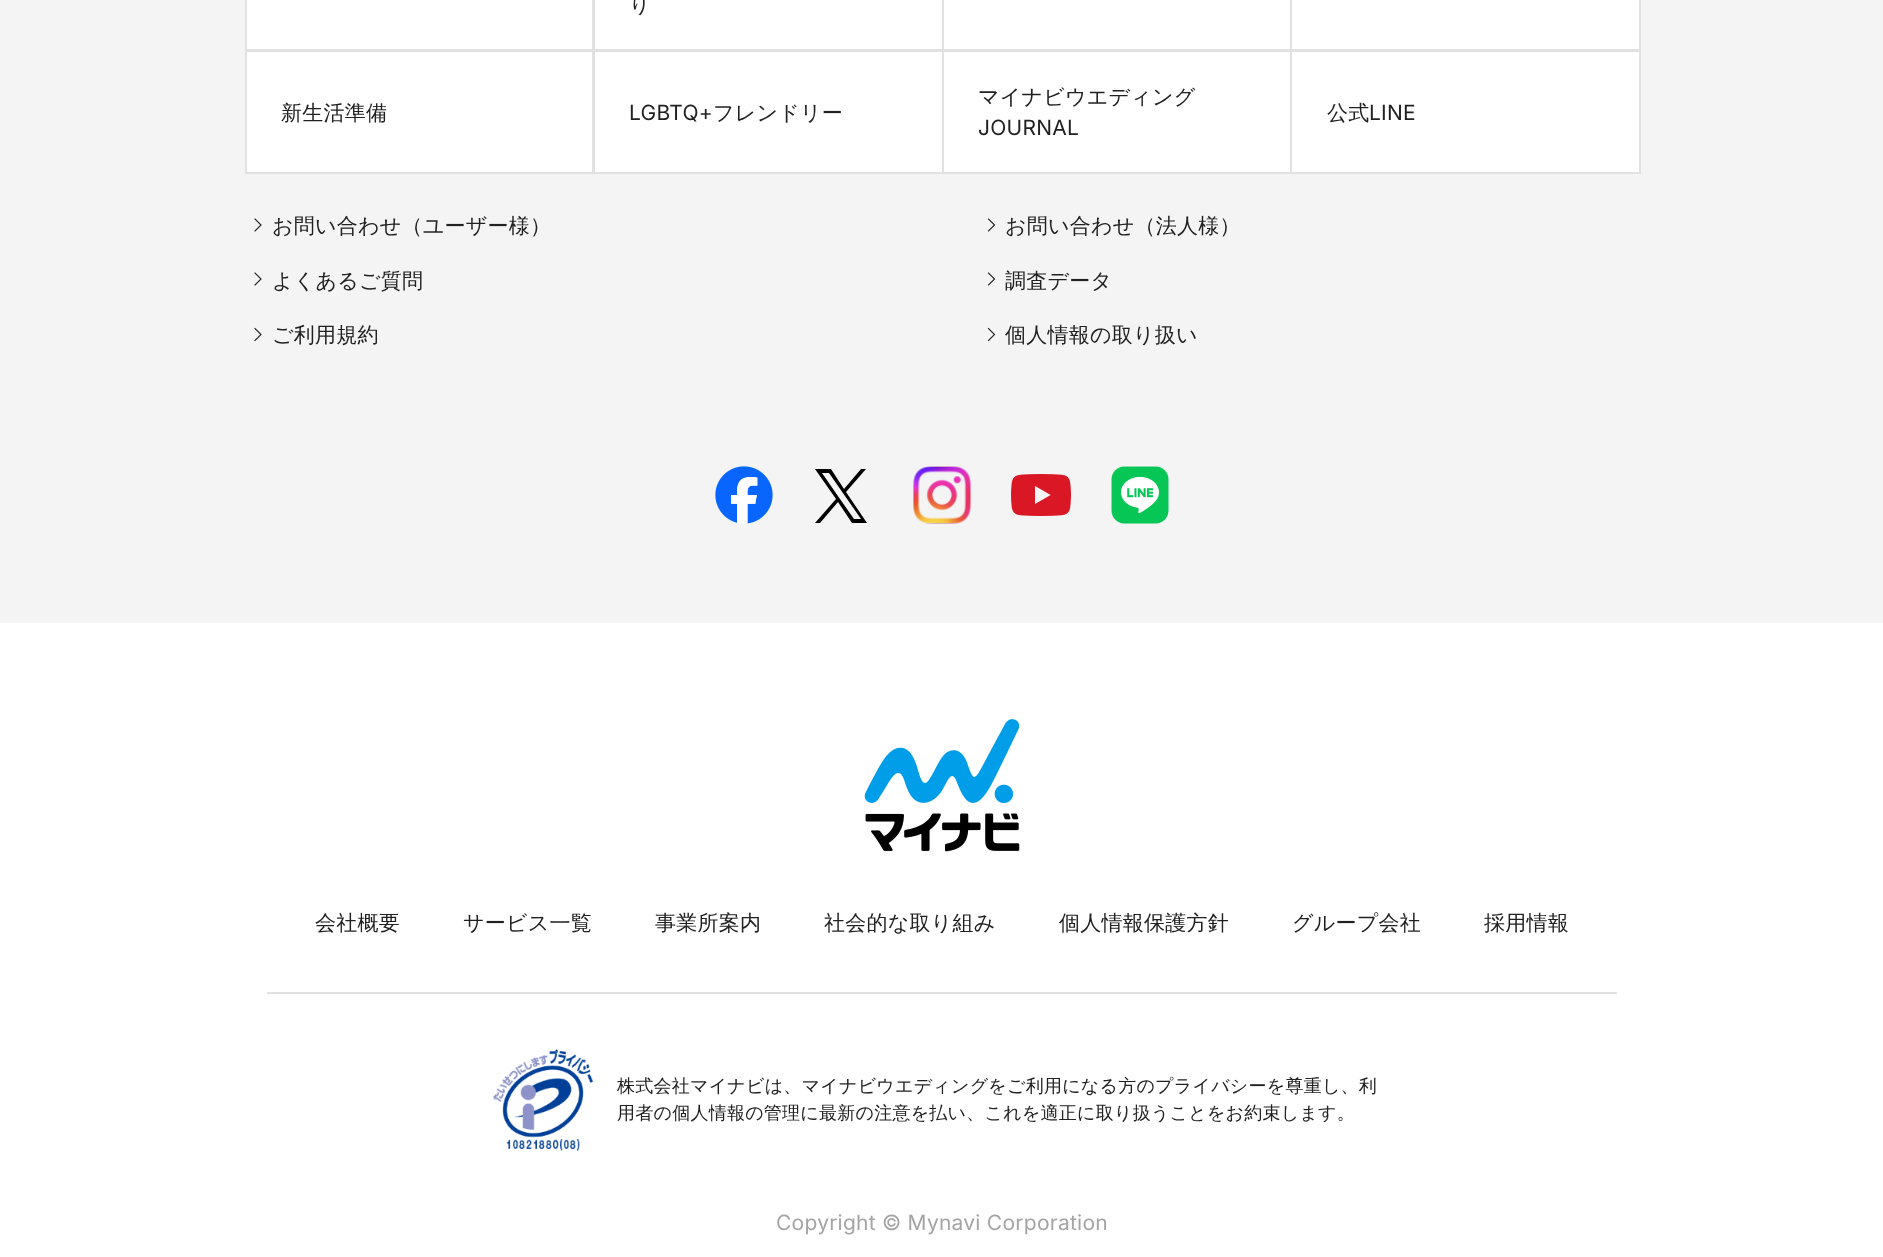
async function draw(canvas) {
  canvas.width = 1883;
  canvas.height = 1257;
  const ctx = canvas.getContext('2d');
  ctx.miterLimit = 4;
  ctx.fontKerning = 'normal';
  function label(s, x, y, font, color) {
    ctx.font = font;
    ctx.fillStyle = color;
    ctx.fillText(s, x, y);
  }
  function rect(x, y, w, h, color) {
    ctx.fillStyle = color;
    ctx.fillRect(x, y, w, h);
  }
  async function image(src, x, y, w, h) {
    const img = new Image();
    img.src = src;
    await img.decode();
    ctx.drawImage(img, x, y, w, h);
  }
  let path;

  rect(0, 0, 1883, 1257, '#fff');
  rect(0, 0, 1883, 623, '#f4f4f4');
  ctx.fillStyle = '#fff';
  ctx.beginPath();
  ctx.rect(246, -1, 347, 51);
  ctx.fill();
  ctx.strokeStyle = '#e1e1e1';
  ctx.lineWidth = 2;
  ctx.stroke();
  rect(595, 0, 347, 49, '#fff');
  ctx.strokeRect(594, -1, 349, 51);
  ctx.letterSpacing = '0.25px';
  label('り', 629, 12, '500 21px WenQuanYi Zen Hei', '#212121');
  ctx.fillStyle = '#fff';
  ctx.beginPath();
  ctx.rect(943, -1, 348, 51);
  ctx.fill();
  ctx.stroke();
  ctx.beginPath();
  ctx.rect(1291, -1, 349, 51);
  ctx.fill();
  ctx.stroke();
  rect(247, 52, 345, 120, '#fff');
  ctx.strokeRect(246, 51, 347, 122);
  label('新生活準備', 281, 120, '500 21px WenQuanYi Zen Hei', '#212121');
  rect(595, 52, 347, 120, '#fff');
  ctx.strokeRect(594, 51, 349, 122);
  label('LGBTQ+', 629, 120, '21px Inter', '#212121');
  label('フレンドリー', 713, 120, '500 21px WenQuanYi Zen Hei', '#212121');
  rect(944, 52, 346, 120, '#fff');
  ctx.strokeRect(943, 51, 348, 122);
  label('マイナビウエディング', 978, 104, '500 21px WenQuanYi Zen Hei', '#212121');
  label('JOURNAL', 978, 135, '21px Inter', '#212121');
  rect(1292, 52, 347, 120, '#fff');
  ctx.strokeRect(1291, 51, 349, 122);
  label('公式', 1327, 120, '500 21px WenQuanYi Zen Hei', '#212121');
  label('LINE', 1369, 120, '21px Inter', '#212121');
  await image('assets/img1.png', 254, 218, 8, 14);
  label('お問い合わせ（ユーザー様）', 272, 233, '500 21px WenQuanYi Zen Hei', '#212121');
  await image('assets/img2.png', 987, 218, 9, 14);
  label('お問い合わせ（法人様）', 1005, 233, '500 21px WenQuanYi Zen Hei', '#212121');
  await image('assets/img1.png', 254, 272, 8, 14);
  label('よくあるご質問', 272, 288, '500 21px WenQuanYi Zen Hei', '#212121');
  await image('assets/img2.png', 987, 272, 9, 14);
  label('調査データ', 1005, 288, '500 21px WenQuanYi Zen Hei', '#212121');
  await image('assets/img3.png', 254, 327, 8, 15);
  label('ご利用規約', 272, 342, '500 21px WenQuanYi Zen Hei', '#212121');
  await image('assets/img4.png', 987, 327, 9, 15);
  label('個人情報の取り扱い', 1005, 342, '500 21px WenQuanYi Zen Hei', '#212121');
  await image('assets/img5.png', 715, 466, 58, 58);
  ctx.fillStyle = '#000';
  path = new Path2D('M846 492L866 469H861L844 489L831 469H815L836 499L815 523H820L838 502L852 523H867ZM840 499L822 473H829L861 519H854Z');
  ctx.fill(path);
  await image('assets/img6.png', 913, 466, 58, 58);
  await image('assets/img7.png', 1011, 474, 60, 42);
  await image('assets/img8.png', 1111, 466, 58, 58);
  await image('assets/img9.png', 864, 719, 156, 133);
  label('会社概要', 315, 930, '500 21px WenQuanYi Zen Hei', '#212121');
  label('サービス一覧', 463, 930, '500 21px WenQuanYi Zen Hei', '#212121');
  label('事業所案内', 655, 930, '500 21px WenQuanYi Zen Hei', '#212121');
  label('社会的な取り組み', 824, 930, '500 21px WenQuanYi Zen Hei', '#212121');
  label('個人情報保護方針', 1059, 930, '500 21px WenQuanYi Zen Hei', '#212121');
  label('グループ会社', 1292, 930, '500 21px WenQuanYi Zen Hei', '#212121');
  label('採用情報', 1484, 930, '500 21px WenQuanYi Zen Hei', '#212121');
  rect(267, 992, 1350, 2, '#e1e1e1');
  await image('assets/img10.png', 493, 1049, 101, 102);
  label('株式会社マイナビは、マイナビウエディングをご利用になる方のプライバシーを尊重し、利', 617, 1092, '500 18px WenQuanYi Zen Hei', '#212121');
  label('用者の個人情報の管理に最新の注意を払い、これを適正に取り扱うことをお約束します。', 617, 1119, '500 18px WenQuanYi Zen Hei', '#212121');
  label('Copyright © Mynavi Corporation', 776, 1230, '21px Inter', '#a4a4a4');
}

draw(document.querySelector('canvas'));
